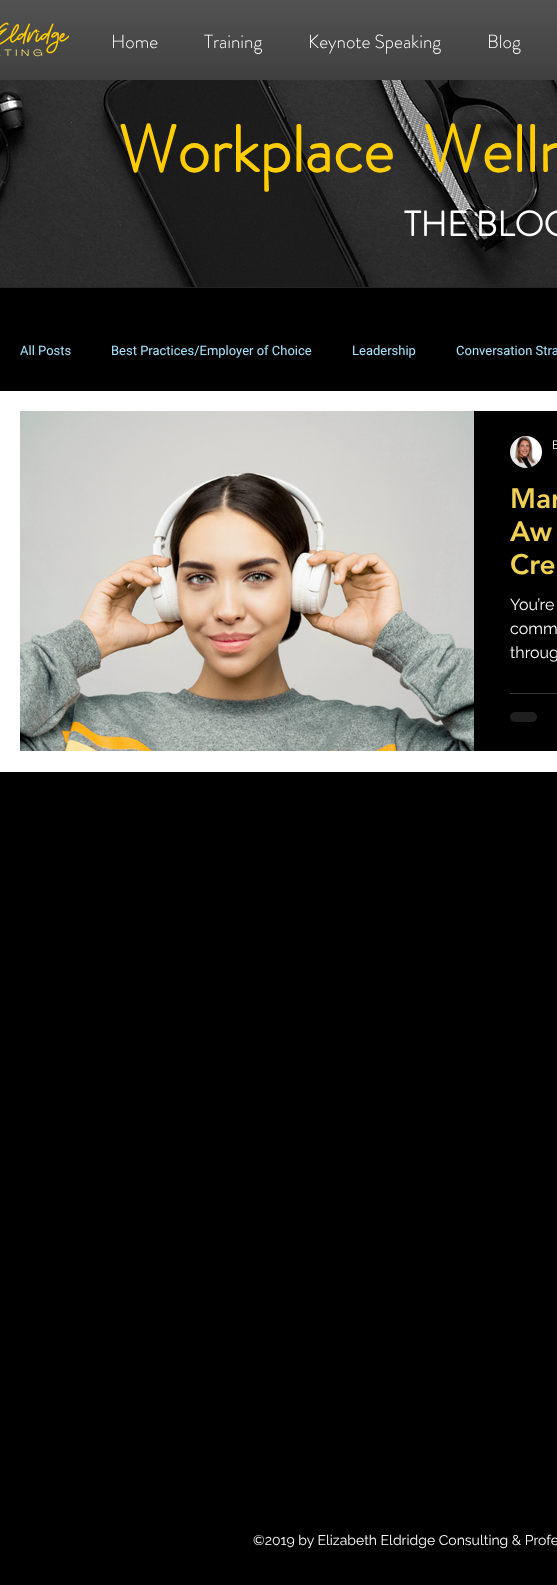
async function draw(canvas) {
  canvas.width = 557;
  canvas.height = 1585;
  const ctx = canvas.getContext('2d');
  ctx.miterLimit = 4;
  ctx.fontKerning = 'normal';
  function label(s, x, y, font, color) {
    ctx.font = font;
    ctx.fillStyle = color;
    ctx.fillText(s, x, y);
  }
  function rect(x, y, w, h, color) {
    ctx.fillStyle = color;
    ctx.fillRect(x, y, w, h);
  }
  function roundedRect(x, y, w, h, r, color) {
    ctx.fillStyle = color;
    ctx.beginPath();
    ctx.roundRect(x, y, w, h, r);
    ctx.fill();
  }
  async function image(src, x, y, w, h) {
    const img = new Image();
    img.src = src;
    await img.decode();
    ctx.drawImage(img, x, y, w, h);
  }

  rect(0, 0, 557, 1585, '#000');
  rect(0, 0, 557, 80, '#171717');
  await image('assets/img1.png', 0, 0, 557, 80);
  await image('assets/img2.png', 0, 22, 69, 35);
  label('Home', 111, 48, '300 19px "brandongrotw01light"', '#fff');
  label('Training', 204, 48, '300 19px "brandongrotw01light"', '#fff');
  label('Keynote Speaking', 308, 48, '300 19px "brandongrotw01light"', '#fff');
  label('Blog', 487, 48, '300 19px "brandongrotw01light"', '#fff');
  await image('assets/img3.png', 0, 80, 557, 207);
  label('Workplace  Welln', 118, 172, 'bold 66px "brandongrotw01light"', '#ffcd00');
  label('THE BLOG', 404, 236, 'bold 35px "brandongrotw01light"', '#fff');
  rect(0, 287, 557, 1, '#242323');
  rect(0, 391, 557, 381, '#fff');
  label('All Posts', 20, 355, '13px Roboto', '#a9e4ff');
  label('Best Practices/Employer of Choice', 111, 355, '13px Roboto', '#a9e4ff');
  label('Leadership', 352, 355, '13px Roboto', '#a9e4ff');
  label('Conversation Stra', 456, 355, '13px Roboto', '#a9e4ff');
  await image('assets/img4.png', 20, 411, 454, 340);
  rect(474, 411, 83, 340, '#000');
  await image('assets/img5.png', 510, 436, 32, 32);
  label('E', 552, 449, '12px Raleway', '#fff');
  label('Mar', 510, 508, '900 28px "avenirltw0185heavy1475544"', '#efd055');
  label('Aw', 510, 541, '900 28px "avenirltw0185heavy1475544"', '#efd055');
  label('Cre', 510, 574, '900 28px "avenirltw0185heavy1475544"', '#efd055');
  label('You’re', 510, 610, '16px Raleway', '#fff');
  label('comm', 510, 634, '16px Raleway', '#fff');
  label('throug', 510, 658, '16px Raleway', '#fff');
  rect(510, 693, 47, 1, '#333');
  roundedRect(510, 712, 27, 10, 5, '#1f1f1f');
  label('©2019 by Elizabeth Eldridge Consulting & Profe', 253, 1545, '14px Raleway', '#fff');
}

draw(document.querySelector('canvas'));
